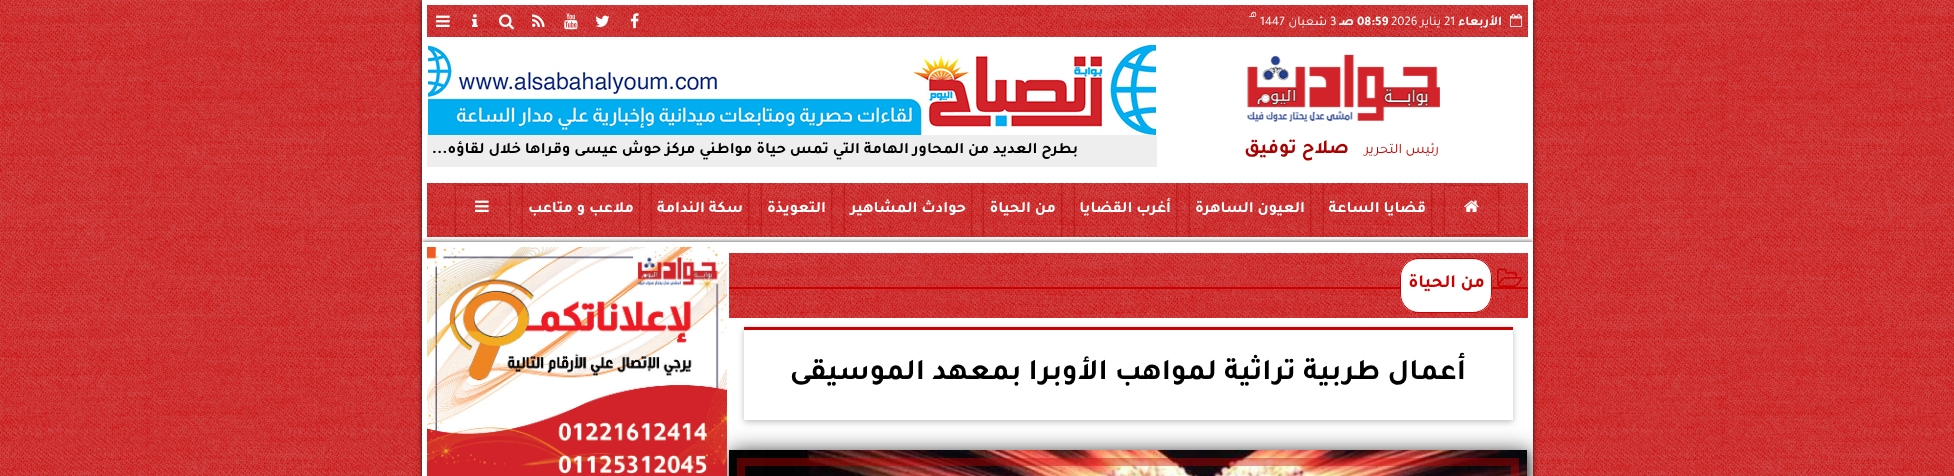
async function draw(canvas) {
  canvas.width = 1954;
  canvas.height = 476;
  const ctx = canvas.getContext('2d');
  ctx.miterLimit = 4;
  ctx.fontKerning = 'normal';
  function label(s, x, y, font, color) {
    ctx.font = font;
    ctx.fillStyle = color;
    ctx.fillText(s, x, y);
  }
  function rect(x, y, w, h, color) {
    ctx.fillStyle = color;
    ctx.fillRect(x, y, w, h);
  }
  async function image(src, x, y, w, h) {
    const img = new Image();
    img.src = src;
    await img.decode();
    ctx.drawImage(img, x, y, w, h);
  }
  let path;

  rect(0, 0, 1954, 476, '#c00');
  await image('assets/img1.png', 0, 0, 1954, 476);
  ctx.fillStyle = '#000000bf';
  ctx.filter = 'blur(2.5px)';
  ctx.beginPath();
  ctx.rect(422, 0, 1111, 242);
  ctx.fill();
  ctx.filter = 'none';
  rect(422, 0, 1111, 242, '#fff');
  rect(427, 5, 1101, 32, '#c00');
  await image('assets/img2.png', 427, 5, 1101, 32);
  await image('assets/img3.png', 1510, 13, 13, 14);
  ctx.direction = 'rtl';
  label('الأربعاء', 1502, 25, 'bold 13px Tajawal', '#fff');
  ctx.direction = 'ltr';
  label('21', 1444, 25, '13px Tajawal', '#fff');
  ctx.direction = 'rtl';
  label('يناير', 1441, 25, '13px Tajawal', '#fff');
  ctx.direction = 'ltr';
  label('2026', 1391, 25, '13px Tajawal', '#fff');
  label('08:59', 1357, 25, 'bold 13px Tajawal', '#fff');
  ctx.direction = 'rtl';
  label('صـ', 1354, 25, 'bold 13px Tajawal', '#fff');
  ctx.direction = 'ltr';
  label('3', 1330, 25, '13px Tajawal', '#fff');
  ctx.direction = 'rtl';
  label('شعبان', 1327, 25, '13px Tajawal', '#fff');
  ctx.direction = 'ltr';
  label('1447', 1260, 25, '13px Tajawal', '#fff');
  ctx.direction = 'rtl';
  label('هـ', 1257, 17, '11px Tajawal', '#fff');
  await image('assets/img4.png', 630, 13, 9, 16);
  await image('assets/img5.png', 595, 15, 15, 12);
  await image('assets/img6.png', 564, 13, 14, 17);
  await image('assets/img7.png', 532, 14, 13, 13);
  await image('assets/img8.png', 499, 14, 15, 16);
  await image('assets/img9.png', 472, 14, 6, 13);
  await image('assets/img10.png', 436, 15, 14, 12);
  await image('assets/img11.png', 1247, 54, 193, 68);
  label('رئيس التحرير', 1439, 153, '14.5px Tajawal', '#c00');
  label('صلاح توفيق', 1349, 153, 'bold 20px Tajawal', '#a00');
  await image('assets/img12.png', 428, 45, 728, 90);
  rect(427, 135, 730, 32, '#eee');
  label('بطرح العديد من المحاور الهامة التي تمس حياة مواطني مركز حوش عيسى وقراها', 1078, 153, 'bold 16px Tajawal', '#000');
  label('خلال لقاؤه...', 521, 153, 'bold 16px Tajawal', '#000');
  rect(427, 183, 1101, 54, '#c00');
  await image('assets/img13.png', 427, 183, 1101, 54);
  ctx.save();
  path = new Path2D('M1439 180H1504V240H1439ZM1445 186H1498V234H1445Z');
  ctx.clip(path, 'evenodd');
  ctx.fillStyle = '#a00';
  ctx.filter = 'blur(1.5px)';
  ctx.beginPath();
  ctx.rect(1445, 186, 53, 48);
  ctx.fill();
  ctx.filter = 'none';
  ctx.restore();
  await image('assets/img14.png', 1464, 200, 15, 12);
  ctx.fillStyle = '#000000bf';
  ctx.filter = 'blur(2.5px)';
  ctx.beginPath();
  ctx.rect(422, 242, 1111, 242);
  ctx.fill();
  ctx.filter = 'none';
  rect(422, 242, 1111, 234, '#fff');
  ctx.save();
  ctx.beginPath();
  ctx.rect(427, 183, 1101, 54);
  ctx.clip();
  path = new Path2D('M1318 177H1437V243H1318ZM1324 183H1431V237H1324Z');
  ctx.clip(path, 'evenodd');
  ctx.fillStyle = '#a00';
  ctx.filter = 'blur(1.5px)';
  ctx.beginPath();
  ctx.rect(1324, 183, 107, 54);
  ctx.fill();
  ctx.filter = 'none';
  ctx.restore();
  label('قضايا الساعة', 1426, 212, 'bold 16px Tajawal', '#fff');
  ctx.save();
  ctx.beginPath();
  ctx.rect(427, 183, 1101, 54);
  ctx.clip();
  path = new Path2D('M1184 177H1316V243H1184ZM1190 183H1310V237H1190Z');
  ctx.clip(path, 'evenodd');
  ctx.fillStyle = '#a00';
  ctx.filter = 'blur(1.5px)';
  ctx.beginPath();
  ctx.rect(1190, 183, 120, 54);
  ctx.fill();
  ctx.filter = 'none';
  ctx.restore();
  label('العيون الساهرة', 1305, 212, 'bold 16px Tajawal', '#fff');
  ctx.save();
  ctx.beginPath();
  ctx.rect(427, 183, 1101, 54);
  ctx.clip();
  path = new Path2D('M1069 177H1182V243H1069ZM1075 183H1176V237H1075Z');
  ctx.clip(path, 'evenodd');
  ctx.fillStyle = '#a00';
  ctx.filter = 'blur(1.5px)';
  ctx.beginPath();
  ctx.rect(1075, 183, 101, 54);
  ctx.fill();
  ctx.filter = 'none';
  ctx.restore();
  label('أغرب القضايا', 1171, 212, 'bold 16px Tajawal', '#fff');
  ctx.save();
  ctx.beginPath();
  ctx.rect(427, 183, 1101, 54);
  ctx.clip();
  path = new Path2D('M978 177H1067V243H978ZM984 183H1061V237H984Z');
  ctx.clip(path, 'evenodd');
  ctx.fillStyle = '#a00';
  ctx.filter = 'blur(1.5px)';
  ctx.beginPath();
  ctx.rect(984, 183, 77, 54);
  ctx.fill();
  ctx.filter = 'none';
  ctx.restore();
  label('من الحياة', 1056, 212, 'bold 16px Tajawal', '#fff');
  ctx.save();
  ctx.beginPath();
  ctx.rect(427, 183, 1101, 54);
  ctx.clip();
  path = new Path2D('M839 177H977V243H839ZM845 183H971V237H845Z');
  ctx.clip(path, 'evenodd');
  ctx.fillStyle = '#a00';
  ctx.filter = 'blur(1.5px)';
  ctx.beginPath();
  ctx.rect(845, 183, 126, 54);
  ctx.fill();
  ctx.filter = 'none';
  ctx.restore();
  label('حوادث المشاهير', 966, 212, 'bold 16px Tajawal', '#fff');
  ctx.save();
  ctx.beginPath();
  ctx.rect(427, 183, 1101, 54);
  ctx.clip();
  path = new Path2D('M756 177H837V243H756ZM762 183H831V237H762Z');
  ctx.clip(path, 'evenodd');
  ctx.fillStyle = '#a00';
  ctx.filter = 'blur(1.5px)';
  ctx.beginPath();
  ctx.rect(762, 183, 69, 54);
  ctx.fill();
  ctx.filter = 'none';
  ctx.restore();
  label('التعويذة', 826, 212, 'bold 16px Tajawal', '#fff');
  ctx.save();
  ctx.beginPath();
  ctx.rect(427, 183, 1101, 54);
  ctx.clip();
  path = new Path2D('M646 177H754V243H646ZM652 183H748V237H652Z');
  ctx.clip(path, 'evenodd');
  ctx.fillStyle = '#a00';
  ctx.filter = 'blur(1.5px)';
  ctx.beginPath();
  ctx.rect(652, 183, 96, 54);
  ctx.fill();
  ctx.filter = 'none';
  ctx.restore();
  label('سكة الندامة', 743, 212, 'bold 16px Tajawal', '#fff');
  ctx.save();
  ctx.beginPath();
  ctx.rect(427, 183, 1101, 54);
  ctx.clip();
  path = new Path2D('M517 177H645V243H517ZM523 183H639V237H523Z');
  ctx.clip(path, 'evenodd');
  ctx.fillStyle = '#a00';
  ctx.filter = 'blur(1.5px)';
  ctx.beginPath();
  ctx.rect(523, 183, 116, 54);
  ctx.fill();
  ctx.filter = 'none';
  ctx.restore();
  label('ملاعب و متاعب', 634, 212, 'bold 16px Tajawal', '#fff');
  ctx.save();
  path = new Path2D('M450 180H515V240H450ZM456 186H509V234H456Z');
  ctx.clip(path, 'evenodd');
  ctx.fillStyle = '#a00';
  ctx.filter = 'blur(1.5px)';
  ctx.beginPath();
  ctx.rect(456, 186, 53, 48);
  ctx.fill();
  ctx.filter = 'none';
  ctx.restore();
  await image('assets/img15.png', 475, 200, 14, 12);
  rect(729, 253, 799, 65, '#c00');
  await image('assets/img16.png', 729, 253, 799, 65);
  await image('assets/img17.png', 1497, 268, 25, 19);
  rect(729, 287, 799, 2, '#c00');
  ctx.save();
  ctx.beginPath();
  ctx.roundRect(1400, 258, 92, 55, 19);
  ctx.clip();
  rect(1400, 259, 92, 53, '#fff');
  ctx.restore();
  ctx.beginPath();
  ctx.roundRect(1400.5, 258.5, 91, 54, 18.5);
  ctx.strokeStyle = '#c00';
  ctx.stroke();
  label('من الحياة', 1485, 287, 'bold 18.5px Tajawal', '#c00');
  ctx.save();
  path = new Path2D('M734 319H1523V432H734ZM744 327H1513V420H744Z');
  ctx.clip(path, 'evenodd');
  ctx.fillStyle = '#00000040';
  ctx.filter = 'blur(3px)';
  ctx.beginPath();
  ctx.rect(744, 329, 769, 93);
  ctx.fill();
  ctx.filter = 'none';
  ctx.restore();
  rect(744, 327, 769, 3, '#c00');
  label('أعمال طربية تراثية لمواهب الأوبرا بمعهد الموسيقى', 1466, 379, 'bold 30px Tajawal', '#000');
  ctx.save();
  ctx.beginPath();
  ctx.rect(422, 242, 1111, 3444);
  ctx.clip();
  ctx.fillStyle = '#00000080';
  ctx.filter = 'blur(12.5px)';
  ctx.beginPath();
  ctx.rect(731, 452, 798, 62);
  ctx.fill();
  ctx.filter = 'none';
  ctx.fillStyle = '#00000059';
  ctx.filter = 'blur(8.5px)';
  ctx.beginPath();
  ctx.rect(731, 452, 798, 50);
  ctx.fill();
  ctx.filter = 'none';
  ctx.restore();
  ctx.fillStyle = '#00000033';
  ctx.filter = 'blur(2.5px)';
  ctx.beginPath();
  ctx.rect(731, 452, 798, 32);
  ctx.fill();
  ctx.filter = 'none';
  await image('assets/img18.png', 729, 450, 798, 26);
  ctx.strokeStyle = '#cc000066';
  ctx.lineWidth = 8;
  ctx.strokeRect(741, 462, 774, 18);
  await image('assets/img19.png', 427, 247, 300, 229);
}

draw(document.querySelector('canvas'));
